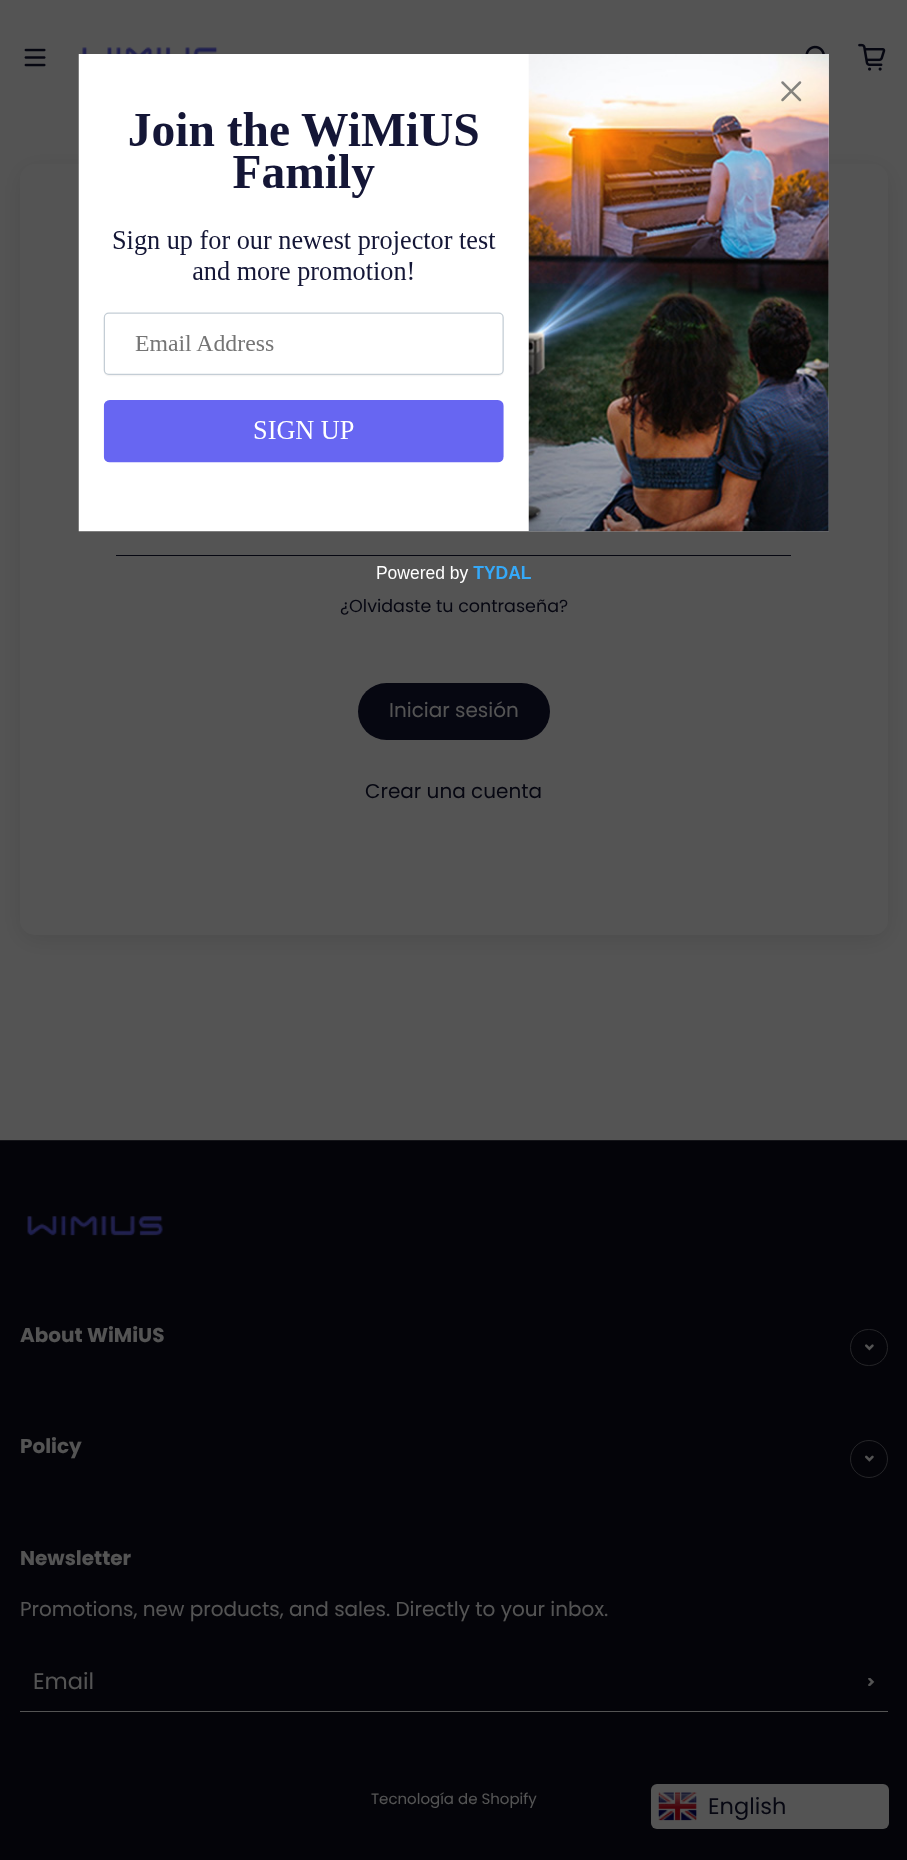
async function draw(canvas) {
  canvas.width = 907;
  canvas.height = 1860;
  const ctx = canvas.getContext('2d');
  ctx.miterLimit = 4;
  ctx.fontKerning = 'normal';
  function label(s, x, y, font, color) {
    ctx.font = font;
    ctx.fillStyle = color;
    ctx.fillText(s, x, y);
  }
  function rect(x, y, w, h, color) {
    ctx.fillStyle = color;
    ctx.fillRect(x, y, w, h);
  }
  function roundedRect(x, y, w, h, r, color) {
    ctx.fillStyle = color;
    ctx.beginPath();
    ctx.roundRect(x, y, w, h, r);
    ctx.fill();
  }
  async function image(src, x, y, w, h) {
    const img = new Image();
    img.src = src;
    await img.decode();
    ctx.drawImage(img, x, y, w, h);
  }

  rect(0, 0, 907, 1860, '#fff');
  await image('assets/img2.png', 24, 48, 22, 19);
  await image('assets/img3.png', 82, 47, 136, 7);
  await image('assets/img4.png', 805, 45, 24, 24);
  await image('assets/img5.png', 858, 43, 28, 28);
  ctx.fillStyle = '#0000001a';
  ctx.filter = 'blur(12.5px)';
  ctx.beginPath();
  ctx.roundRect(20, 169, 868, 771, 15);
  ctx.fill();
  ctx.filter = 'none';
  roundedRect(20, 164, 868, 771, 15, '#fff');
  rect(116, 555, 675, 1, '#141636');
  label('¿Olvidaste tu contraseña?', 340, 612, '17.5px Poppins', '#141636');
  roundedRect(358, 683, 192, 57, 28.5, '#141636');
  label('Iniciar sesión', 389, 717, '20px Poppins', '#fff');
  label('Crear una cuenta', 365, 798, '20px Poppins', '#141636');
  rect(0, 1141, 907, 719, '#0f0f1e');
  rect(0, 1140, 907, 1, '#3f3f4b');
  await image('assets/img6.png', 27, 1216, 136, 20);
  label('About WiMiUS', 20, 1342, 'bold 20px Poppins', '#fff');
  ctx.beginPath();
  ctx.roundRect(850.5, 1329.5, 37, 36, 18);
  ctx.strokeStyle = '#6f6f78';
  ctx.stroke();
  await image('assets/img7.png', 865, 1344, 9, 7);
  label('Policy', 20, 1453, 'bold 20px Poppins', '#fff');
  ctx.beginPath();
  ctx.arc(869, 1459, 18.5, 0, 2 * Math.PI);
  ctx.stroke();
  await image('assets/img8.png', 865, 1455, 9, 7);
  label('Newsletter', 20, 1565, 'bold 20px Poppins', '#fff');
  label('Promotions, new products, and sales. Directly to your inbox.', 20, 1616, '20px Poppins', '#fff');
  label('Email', 33, 1689, '22.5px Poppins', '#fff');
  await image('assets/img9.png', 868, 1678, 7, 8);
  rect(20, 1711, 868, 1, '#fff');
  label('Tecnología de Shopify', 371, 1804, '15px Poppins', '#fff');
  roundedRect(651, 1784, 238, 45, 6, '#fff');
  await image('assets/img10.png', 658, 1792, 39, 29);
  label('English', 708, 1814, '22.5px Poppins', '#141636');
  await image('assets/img1.png', 0, 0, 907, 1860);
}

draw(document.querySelector('canvas'));
